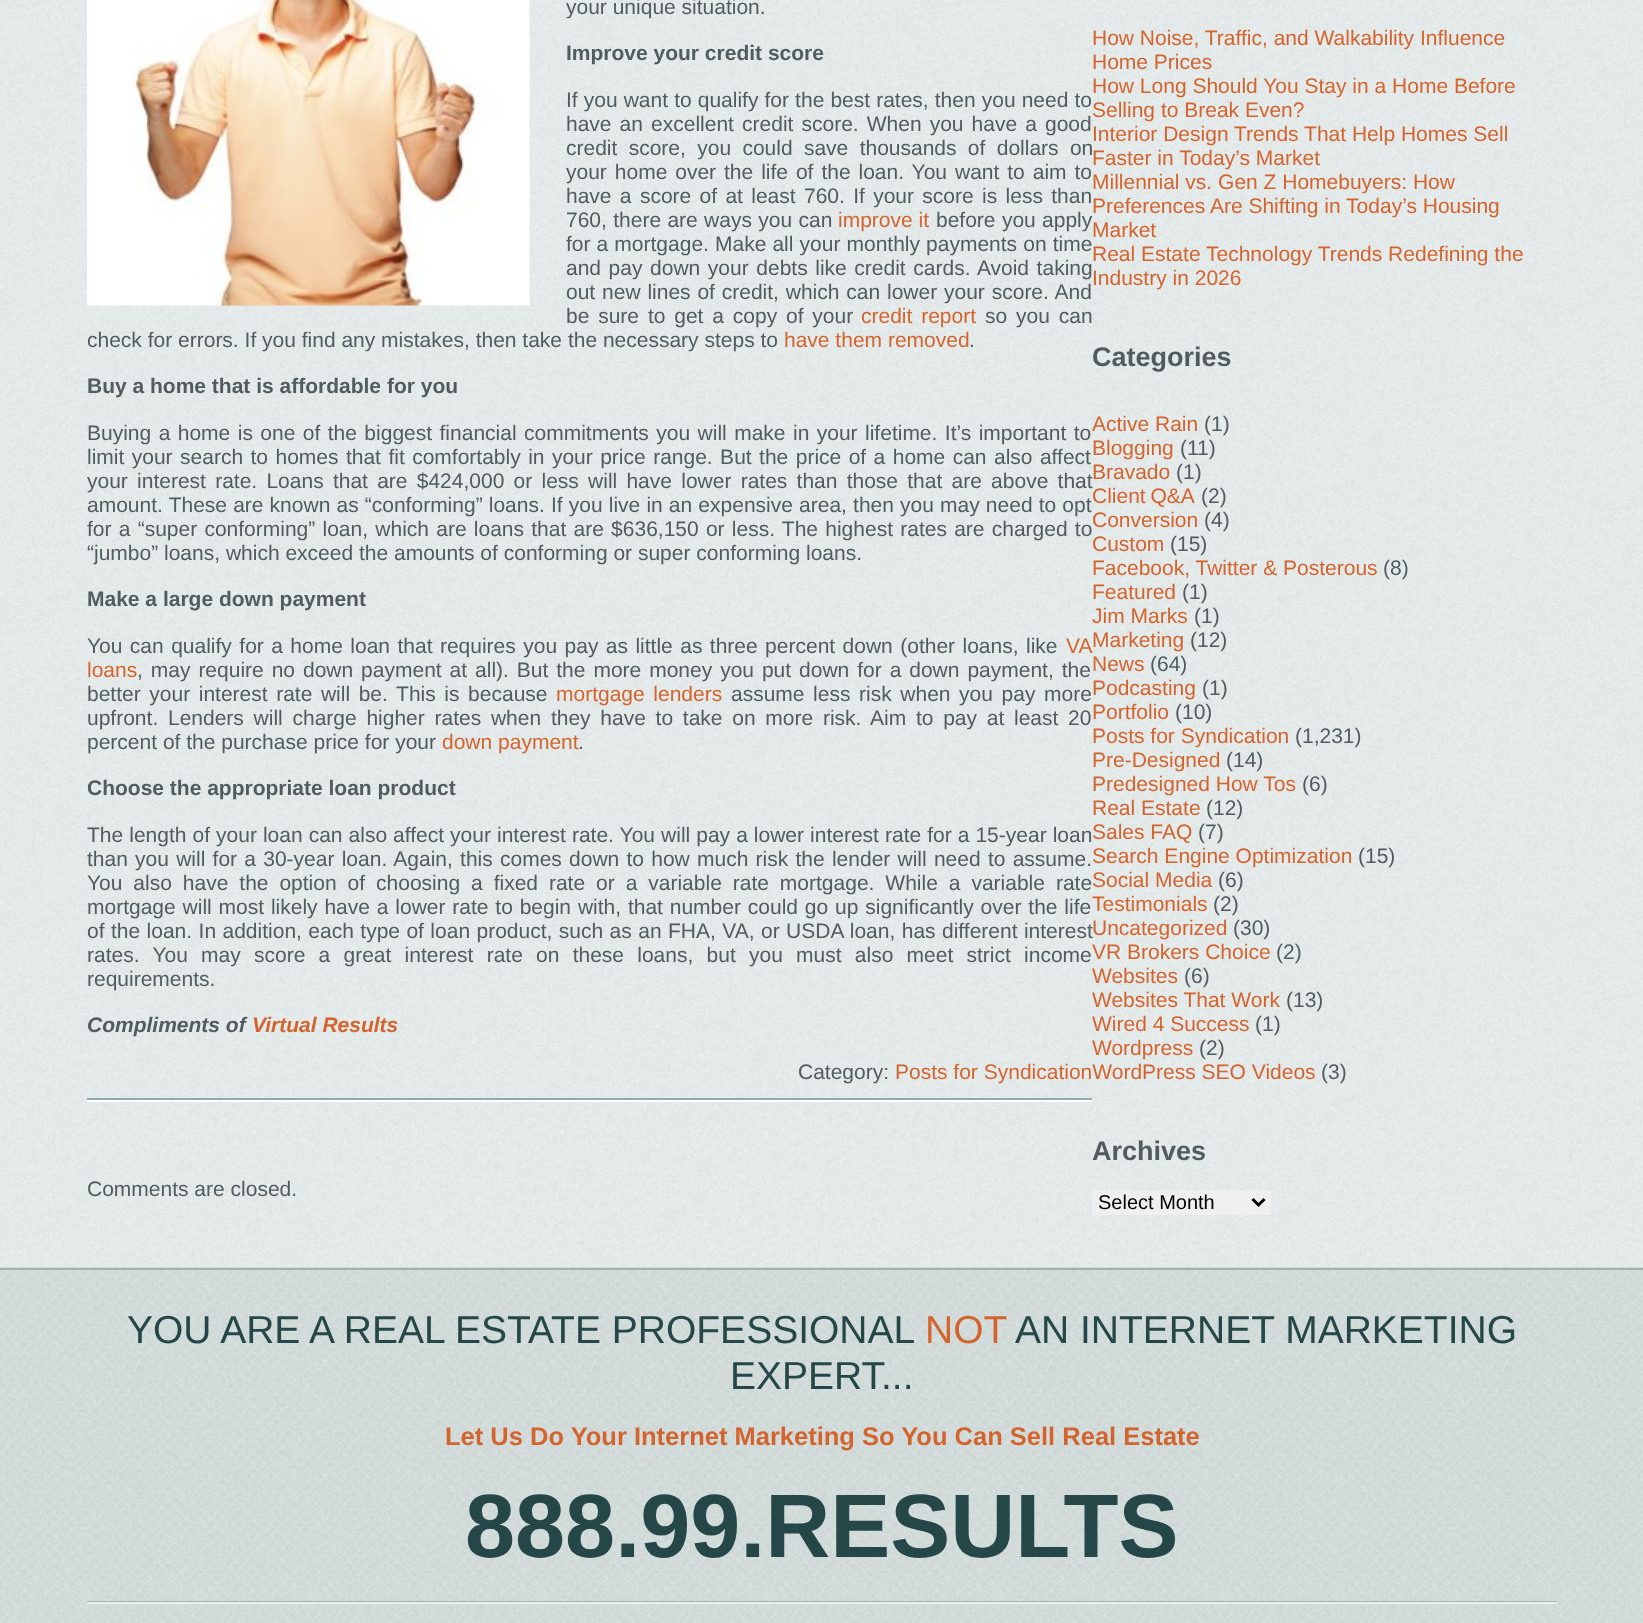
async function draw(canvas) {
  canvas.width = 1643;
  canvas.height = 1623;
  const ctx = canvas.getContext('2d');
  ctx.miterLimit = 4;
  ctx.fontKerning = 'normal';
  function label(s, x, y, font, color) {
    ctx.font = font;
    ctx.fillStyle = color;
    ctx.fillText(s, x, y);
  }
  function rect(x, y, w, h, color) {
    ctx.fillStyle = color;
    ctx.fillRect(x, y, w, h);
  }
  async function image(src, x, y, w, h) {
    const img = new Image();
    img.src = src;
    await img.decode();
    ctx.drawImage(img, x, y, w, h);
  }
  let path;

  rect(0, 0, 1643, 1623, '#fff');
  await image('assets/img1.png', 0, 0, 1643, 1267);
  await image('assets/img2.png', 87, 0, 443, 306);
  label('your unique situation.', 566, 14, '21px Liberation Sans', '#525b5d');
  label('Improve your credit score', 566, 60, 'bold 21px Liberation Sans', '#525b5d');
  ctx.wordSpacing = '0.25px';
  label('If you want to qualify for the best rates, then you need to', 566, 107, '21px Liberation Sans', '#525b5d');
  ctx.wordSpacing = '2.25px';
  label('have an excellent credit score. When you have a good', 566, 131, '21px Liberation Sans', '#525b5d');
  ctx.wordSpacing = '5.5px';
  label('credit score, you could save thousands of dollars on', 566, 155, '21px Liberation Sans', '#525b5d');
  ctx.wordSpacing = '2.1px';
  label('your home over the life of the loan. You want to aim to', 566, 179, '21px Liberation Sans', '#525b5d');
  ctx.wordSpacing = '2.5px';
  label('have a score of at least 760. If your score is less than', 566, 203, '21px Liberation Sans', '#525b5d');
  ctx.wordSpacing = '0.5px';
  label('760, there are ways you can', 566, 227, '21px Liberation Sans', '#525b5d');
  ctx.wordSpacing = '0px';
  label('improve it', 838, 227, '21px Liberation Sans', '#d4642d');
  ctx.wordSpacing = '0.5px';
  label('before you apply', 936, 227, '21px Liberation Sans', '#525b5d');
  ctx.wordSpacing = '0.25px';
  label('for a mortgage. Make all your monthly payments on time', 566, 251, '21px Liberation Sans', '#525b5d');
  ctx.wordSpacing = '1.75px';
  label('and pay down your debts like credit cards. Avoid taking', 566, 275, '21px Liberation Sans', '#525b5d');
  ctx.wordSpacing = '1px';
  label('out new lines of credit, which can lower your score. And', 566, 299, '21px Liberation Sans', '#525b5d');
  ctx.wordSpacing = '3px';
  label('be sure to get a copy of your', 566, 323, '21px Liberation Sans', '#525b5d');
  label('credit report', 861, 323, '21px Liberation Sans', '#d4642d');
  label('so you can', 985, 323, '21px Liberation Sans', '#525b5d');
  ctx.wordSpacing = '0px';
  label('check for errors. If you find any mistakes, then take the necessary steps to', 87, 347, '21px Liberation Sans', '#525b5d');
  label('have them removed', 784, 347, '21px Liberation Sans', '#d4642d');
  label('.', 969, 347, '21px Liberation Sans', '#525b5d');
  label('Buy a home that is affordable for you', 87, 393, 'bold 21px Liberation Sans', '#525b5d');
  ctx.wordSpacing = '1.6px';
  label('Buying a home is one of the biggest financial commitments you will make in your lifetime. It’s important to', 87, 440, '21px Liberation Sans', '#525b5d');
  label('limit your search to homes that fit comfortably in your price range. But the price of a home can also affect', 87, 464, '21px Liberation Sans', '#525b5d');
  ctx.wordSpacing = '3.4px';
  label('your interest rate. Loans that are $424,000 or less will have lower rates than those that are above that', 87, 488, '21px Liberation Sans', '#525b5d');
  ctx.wordSpacing = '0.3px';
  label('amount. These are known as “conforming” loans. If you live in an expensive area, then you may need to opt', 87, 512, '21px Liberation Sans', '#525b5d');
  ctx.wordSpacing = '1.4px';
  label('for a “super conforming” loan, which are loans that are $636,150 or less. The highest rates are charged to', 87, 536, '21px Liberation Sans', '#525b5d');
  ctx.wordSpacing = '0px';
  label('“jumbo” loans, which exceed the amounts of conforming or super conforming loans.', 87, 560, '21px Liberation Sans', '#525b5d');
  label('Make a large down payment', 87, 606, 'bold 21px Liberation Sans', '#525b5d');
  ctx.wordSpacing = '1.6px';
  label('You can qualify for a home loan that requires you pay as little as three percent down (other loans, like', 87, 653, '21px Liberation Sans', '#525b5d');
  ctx.wordSpacing = '0px';
  label('VA', 1066, 653, '21px Liberation Sans', '#d4642d');
  label('loans', 87, 677, '21px Liberation Sans', '#d4642d');
  ctx.wordSpacing = '2.1px';
  label(', may require no down payment at all). But the more money you put down for a down payment, the', 137, 677, '21px Liberation Sans', '#525b5d');
  ctx.wordSpacing = '2.75px';
  label('better your interest rate will be. This is because', 87, 701, '21px Liberation Sans', '#525b5d');
  label('mortgage lenders', 556, 701, '21px Liberation Sans', '#d4642d');
  label('assume less risk when you pay more', 731, 701, '21px Liberation Sans', '#525b5d');
  ctx.wordSpacing = '3.9px';
  label('upfront. Lenders will charge higher rates when they have to take on more risk. Aim to pay at least 20', 87, 725, '21px Liberation Sans', '#525b5d');
  ctx.wordSpacing = '0px';
  label('percent of the purchase price for your', 87, 749, '21px Liberation Sans', '#525b5d');
  label('down payment', 442, 749, '21px Liberation Sans', '#d4642d');
  label('.', 578, 749, '21px Liberation Sans', '#525b5d');
  label('Choose the appropriate loan product', 87, 795, 'bold 21px Liberation Sans', '#525b5d');
  ctx.wordSpacing = '0.2px';
  label('The length of your loan can also affect your interest rate. You will pay a lower interest rate for a 15-year loan', 87, 842, '21px Liberation Sans', '#525b5d');
  ctx.wordSpacing = '1.4px';
  label('than you will for a 30-year loan. Again, this comes down to how much risk the lender will need to assume.', 87, 866, '21px Liberation Sans', '#525b5d');
  ctx.wordSpacing = '5.1px';
  label('You also have the option of choosing a fixed rate or a variable rate mortgage. While a variable rate', 87, 890, '21px Liberation Sans', '#525b5d');
  ctx.wordSpacing = '1px';
  label('mortgage will most likely have a lower rate to begin with, that number could go up significantly over the life', 87, 914, '21px Liberation Sans', '#525b5d');
  ctx.wordSpacing = '0.6px';
  label('of the loan. In addition, each type of loan product, such as an FHA, VA, or USDA loan, has different interest', 87, 938, '21px Liberation Sans', '#525b5d');
  ctx.wordSpacing = '7.4px';
  label('rates. You may score a great interest rate on these loans, but you must also meet strict income', 87, 962, '21px Liberation Sans', '#525b5d');
  ctx.wordSpacing = '0px';
  label('requirements.', 87, 986, '21px Liberation Sans', '#525b5d');
  label('Compliments of', 87, 1032, 'italic bold 21px Liberation Sans', '#525b5d');
  label('Virtual Results', 252, 1032, 'italic bold 21px Liberation Sans', '#d4642d');
  label('Category:', 798, 1079, '21px Liberation Sans', '#525b5d');
  label('Posts for SyndicationWordPress SEO Videos', 895, 1079, '21px Liberation Sans', '#d4642d');
  rect(87, 1098, 1005, 2, '#91abab');
  rect(87, 1100, 1005, 2, '#fff');
  label('Comments are closed.', 87, 1196, '21px Liberation Sans', '#525b5d');
  label('How Noise, Traffic, and Walkability Influence', 1092, 45, '21px Liberation Sans', '#d4642d');
  label('Home Prices', 1092, 69, '21px Liberation Sans', '#d4642d');
  label('How Long Should You Stay in a Home Before', 1092, 93, '21px Liberation Sans', '#d4642d');
  label('Selling to Break Even?', 1092, 117, '21px Liberation Sans', '#d4642d');
  label('Interior Design Trends That Help Homes Sell', 1092, 141, '21px Liberation Sans', '#d4642d');
  label('Faster in Today’s Market', 1092, 165, '21px Liberation Sans', '#d4642d');
  label('Millennial vs. Gen Z Homebuyers: How', 1092, 189, '21px Liberation Sans', '#d4642d');
  label('Preferences Are Shifting in Today’s Housing', 1092, 213, '21px Liberation Sans', '#d4642d');
  label('Market', 1092, 237, '21px Liberation Sans', '#d4642d');
  label('Real Estate Technology Trends Redefining the', 1092, 261, '21px Liberation Sans', '#d4642d');
  label('Industry in 2026', 1092, 285, '21px Liberation Sans', '#d4642d');
  label('Categories', 1092, 366, 'bold 27px Liberation Sans', '#525b5d');
  label('Active Rain', 1092, 431, '21px Liberation Sans', '#d4642d');
  label('(1)', 1204, 431, '21px Liberation Sans', '#525b5d');
  label('Blogging', 1092, 455, '21px Liberation Sans', '#d4642d');
  label('(11)', 1180, 455, '21px Liberation Sans', '#525b5d');
  label('Bravado', 1092, 479, '21px Liberation Sans', '#d4642d');
  label('(1)', 1176, 479, '21px Liberation Sans', '#525b5d');
  ctx.wordSpacing = '-1px';
  label('Client Q&A', 1092, 503, '21px Liberation Sans', '#d4642d');
  ctx.wordSpacing = '0px';
  label('(2)', 1201, 503, '21px Liberation Sans', '#525b5d');
  label('Conversion', 1092, 527, '21px Liberation Sans', '#d4642d');
  label('(4)', 1204, 527, '21px Liberation Sans', '#525b5d');
  label('Custom', 1092, 551, '21px Liberation Sans', '#d4642d');
  label('(15)', 1170, 551, '21px Liberation Sans', '#525b5d');
  label('Facebook, Twitter & Posterous', 1092, 575, '21px Liberation Sans', '#d4642d');
  label('(8)', 1383, 575, '21px Liberation Sans', '#525b5d');
  label('Featured', 1092, 599, '21px Liberation Sans', '#d4642d');
  label('(1)', 1182, 599, '21px Liberation Sans', '#525b5d');
  label('Jim Marks', 1092, 623, '21px Liberation Sans', '#d4642d');
  label('(1)', 1194, 623, '21px Liberation Sans', '#525b5d');
  label('Marketing', 1092, 647, '21px Liberation Sans', '#d4642d');
  label('(12)', 1190, 647, '21px Liberation Sans', '#525b5d');
  label('News', 1092, 671, '21px Liberation Sans', '#d4642d');
  label('(64)', 1150, 671, '21px Liberation Sans', '#525b5d');
  label('Podcasting', 1092, 695, '21px Liberation Sans', '#d4642d');
  label('(1)', 1202, 695, '21px Liberation Sans', '#525b5d');
  label('Portfolio', 1092, 719, '21px Liberation Sans', '#d4642d');
  label('(10)', 1175, 719, '21px Liberation Sans', '#525b5d');
  label('Posts for Syndication', 1092, 743, '21px Liberation Sans', '#d4642d');
  label('(1,231)', 1295, 743, '21px Liberation Sans', '#525b5d');
  label('Pre-Designed', 1092, 767, '21px Liberation Sans', '#d4642d');
  label('(14)', 1226, 767, '21px Liberation Sans', '#525b5d');
  label('Predesigned How Tos', 1092, 791, '21px Liberation Sans', '#d4642d');
  label('(6)', 1302, 791, '21px Liberation Sans', '#525b5d');
  label('Real Estate', 1092, 815, '21px Liberation Sans', '#d4642d');
  label('(12)', 1206, 815, '21px Liberation Sans', '#525b5d');
  label('Sales FAQ', 1092, 839, '21px Liberation Sans', '#d4642d');
  label('(7)', 1198, 839, '21px Liberation Sans', '#525b5d');
  label('Search Engine Optimization', 1092, 863, '21px Liberation Sans', '#d4642d');
  label('(15)', 1358, 863, '21px Liberation Sans', '#525b5d');
  label('Social Media', 1092, 887, '21px Liberation Sans', '#d4642d');
  label('(6)', 1218, 887, '21px Liberation Sans', '#525b5d');
  label('Testimonials', 1092, 911, '21px Liberation Sans', '#d4642d');
  label('(2)', 1213, 911, '21px Liberation Sans', '#525b5d');
  label('Uncategorized', 1092, 935, '21px Liberation Sans', '#d4642d');
  label('(30)', 1233, 935, '21px Liberation Sans', '#525b5d');
  label('VR Brokers Choice', 1092, 959, '21px Liberation Sans', '#d4642d');
  label('(2)', 1276, 959, '21px Liberation Sans', '#525b5d');
  label('Websites', 1092, 983, '21px Liberation Sans', '#d4642d');
  label('(6)', 1184, 983, '21px Liberation Sans', '#525b5d');
  label('Websites That Work', 1092, 1007, '21px Liberation Sans', '#d4642d');
  label('(13)', 1286, 1007, '21px Liberation Sans', '#525b5d');
  label('Wired 4 Success', 1092, 1031, '21px Liberation Sans', '#d4642d');
  label('(1)', 1255, 1031, '21px Liberation Sans', '#525b5d');
  label('Wordpress', 1092, 1055, '21px Liberation Sans', '#d4642d');
  label('(2)', 1199, 1055, '21px Liberation Sans', '#525b5d');
  label('(3)', 1321, 1079, '21px Liberation Sans', '#525b5d');
  label('Archives', 1092, 1160, 'bold 27px Liberation Sans', '#525b5d');
  rect(1092, 1190, 179, 25, '#efefef');
  path = new Path2D('M1252.5 1199L1258.5 1205L1264.5 1199');
  ctx.strokeStyle = '#000';
  ctx.lineWidth = 3;
  ctx.stroke(path);
  label('Select Month', 1098, 1209, '20px Liberation Sans', '#000');
  await image('assets/img3.png', 0, 1267, 1643, 356);
  rect(0, 1268, 1643, 2, '#a3b0af');
  rect(87, 1601, 1470, 1, '#a6b3b2');
  label('YOU ARE A REAL ESTATE PROFESSIONAL', 127, 1343, '39px Liberation Sans', '#254747');
  label('NOT', 925, 1343, '39px Liberation Sans', '#d4642d');
  label('AN INTERNET MARKETING', 1015, 1343, '39px Liberation Sans', '#254747');
  label('EXPERT...', 730, 1389, '39px Liberation Sans', '#254747');
  label('Let Us Do Your Internet Marketing So You Can Sell Real Estate', 445, 1445, 'bold 25.5px Liberation Sans', '#d4642d');
  label('888.99.RESULTS', 465, 1557, 'bold 90px Liberation Sans', '#254747');
  rect(87, 1602, 1470, 2, '#e9eeee');
}

draw(document.querySelector('canvas'));
